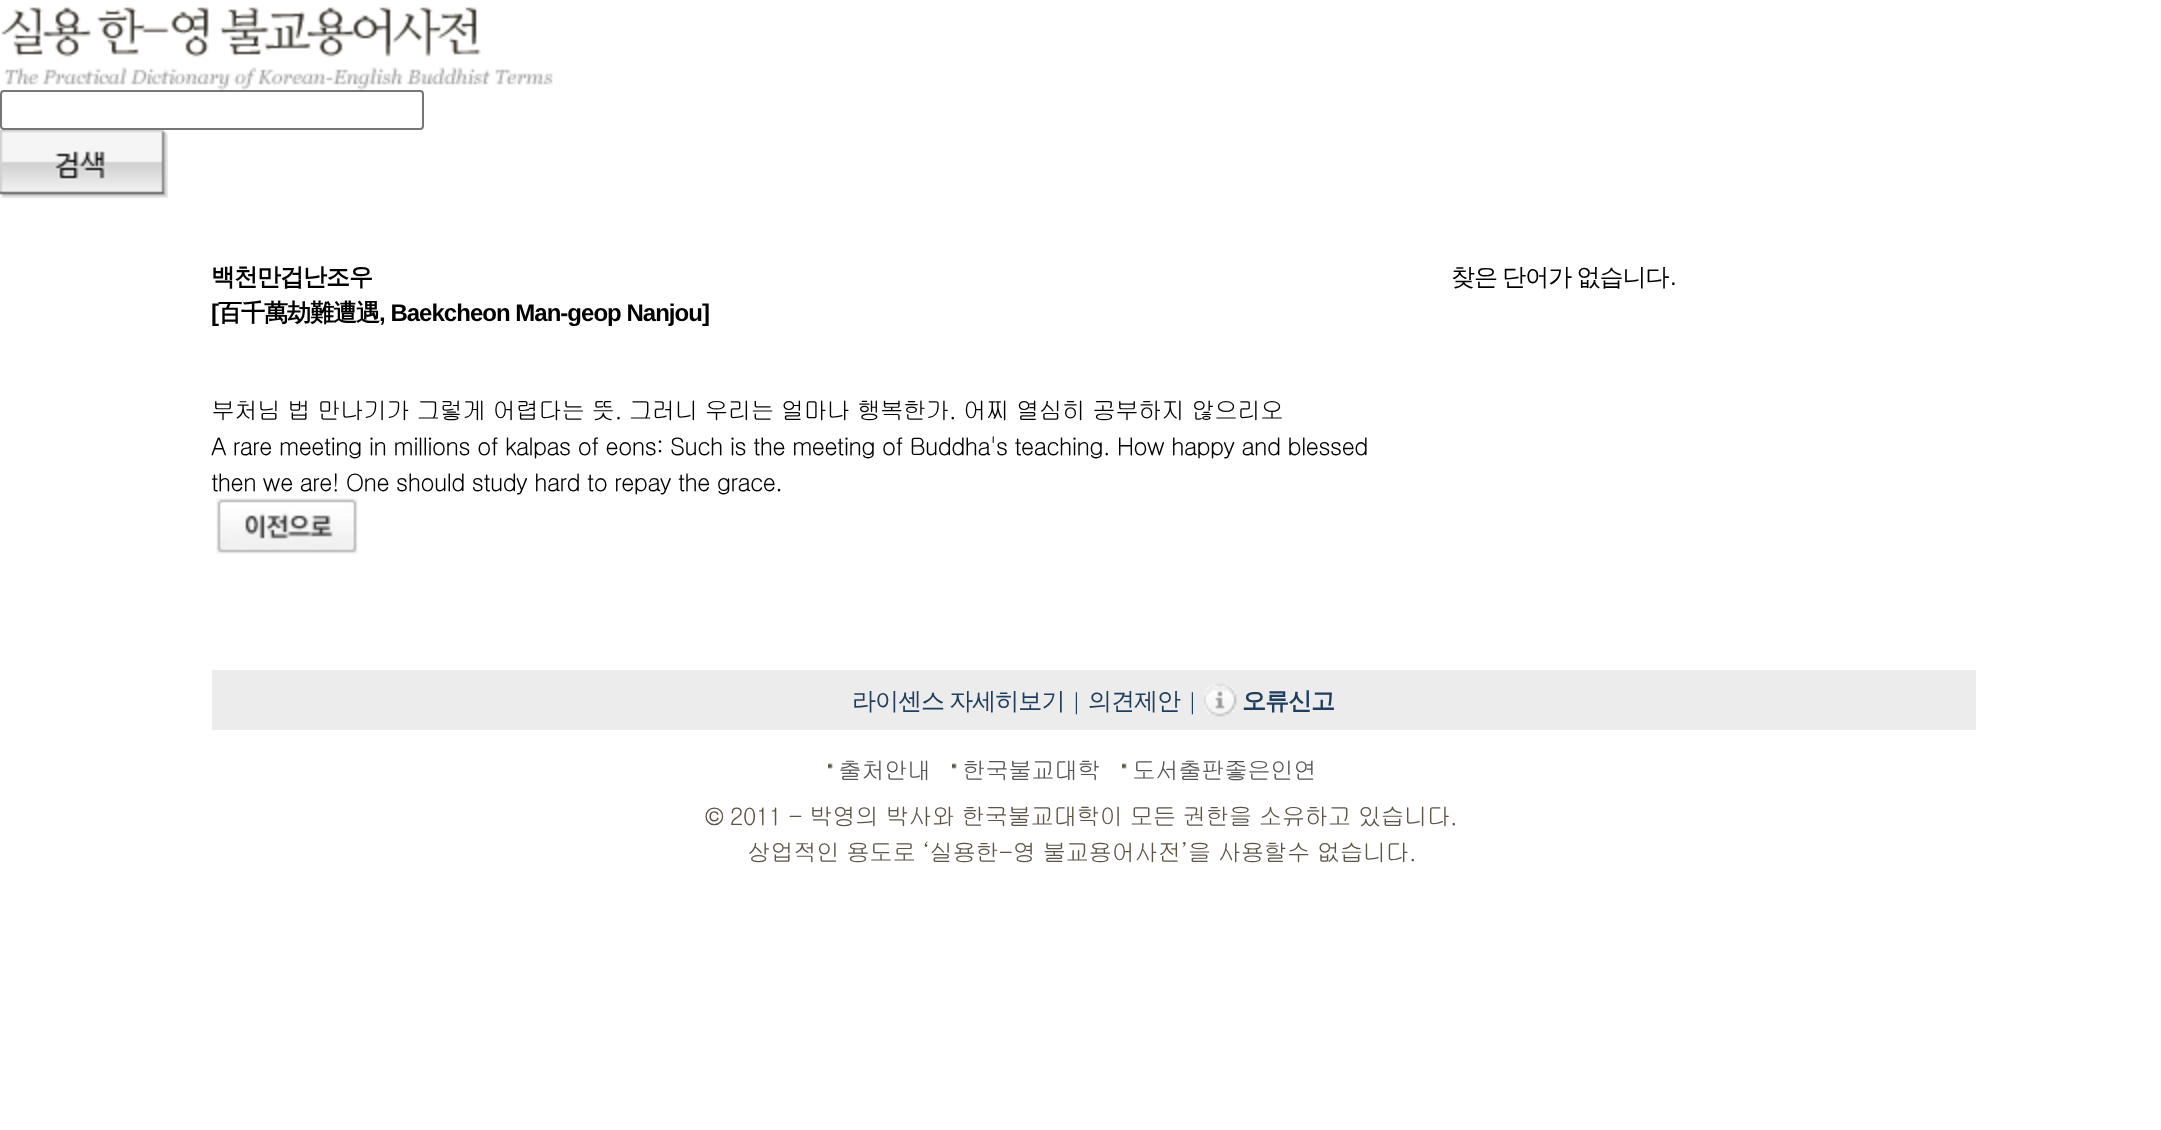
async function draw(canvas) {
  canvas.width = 2161;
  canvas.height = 1130;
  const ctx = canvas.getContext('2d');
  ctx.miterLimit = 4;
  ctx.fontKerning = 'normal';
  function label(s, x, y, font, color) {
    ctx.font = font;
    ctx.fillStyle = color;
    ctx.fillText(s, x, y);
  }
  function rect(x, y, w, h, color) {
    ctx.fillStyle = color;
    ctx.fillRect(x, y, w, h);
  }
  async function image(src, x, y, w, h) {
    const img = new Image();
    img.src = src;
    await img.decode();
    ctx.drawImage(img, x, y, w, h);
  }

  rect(0, 0, 2161, 1130, '#fff');
  await image('assets/img1.png', 1, 7, 552, 83);
  ctx.beginPath();
  ctx.roundRect(1, 91, 422, 38, 3);
  ctx.strokeStyle = '#767676';
  ctx.lineWidth = 2;
  ctx.stroke();
  await image('assets/img2.png', 0, 130, 168, 68);
  ctx.letterSpacing = '-0.98px';
  label('백천만겁난조우', 211, 285, 'bold 24px WenQuanYi Zen Hei', '#000');
  label('[', 211, 321, 'bold 24px Liberation Sans', '#000');
  label('百千萬劫難遭遇', 218, 321, 'bold 24px WenQuanYi Zen Hei', '#000');
  label(', Baekcheon Man-geop Nanjou]', 379, 321, 'bold 24px Liberation Sans', '#000');
  label('부처님 법 만나기가 그렇게 어렵다는 뜻. 그러니 우리는 얼마나 행복한가. 어찌 열심히 공부하지 않으리오', 211, 419, '24px Gulim', '#000');
  label('A rare meeting in millions of kalpas of eons: Such is the meeting of Buddha\'s teaching. How happy and blessed', 211, 455, '24px Gulim', '#000');
  label('then we are! One should study hard to repay the grace.', 211, 491, '24px Gulim', '#000');
  await image('assets/img3.png', 216, 498, 142, 56);
  ctx.wordSpacing = '-1px';
  label('찾은 단어가 없습니다', 1451, 285, '500 24px WenQuanYi Zen Hei', '#000');
  ctx.wordSpacing = '0px';
  label('.', 1670, 285, '24px Liberation Sans', '#000');
  rect(212, 670, 1764, 60, '#ececec');
  ctx.wordSpacing = '-1px';
  label('라이센스 자세히보기', 852, 709, '500 24px WenQuanYi Zen Hei', '#203e5d');
  ctx.wordSpacing = '0px';
  label('|', 1074, 709, '24px Liberation Serif', '#203e5d');
  label('의견제안', 1088, 709, '500 24px WenQuanYi Zen Hei', '#203e5d');
  label('|', 1190, 709, '24px Liberation Serif', '#203e5d');
  await image('assets/img4.png', 1204, 683, 33, 34);
  label('오류신고', 1242, 709, 'bold 24px WenQuanYi Zen Hei', '#203e5d');
  await image('assets/img5.png', 828, 763, 5, 6);
  ctx.letterSpacing = '-1px';
  label('출처안내', 838, 779, '24px Gulim', '#545454');
  await image('assets/img5.png', 952, 763, 5, 6);
  label('한국불교대학', 962, 779, '24px Gulim', '#545454');
  await image('assets/img5.png', 1122, 763, 5, 6);
  label('도서출판좋은인연', 1132, 779, '24px Gulim', '#545454');
  ctx.letterSpacing = '-0.98px';
  label('© 2011 - 박영의 박사와 한국불교대학이 모든 권한을 소유하고 있습니다.', 705, 825, '24px Gulim', '#5b5548');
  label('상업적인 용도로 ‘실용한-영 불교용어사전’을 사용할수 없습니다.', 747, 861, '24px Gulim', '#5b5548');
}

draw(document.querySelector('canvas'));
